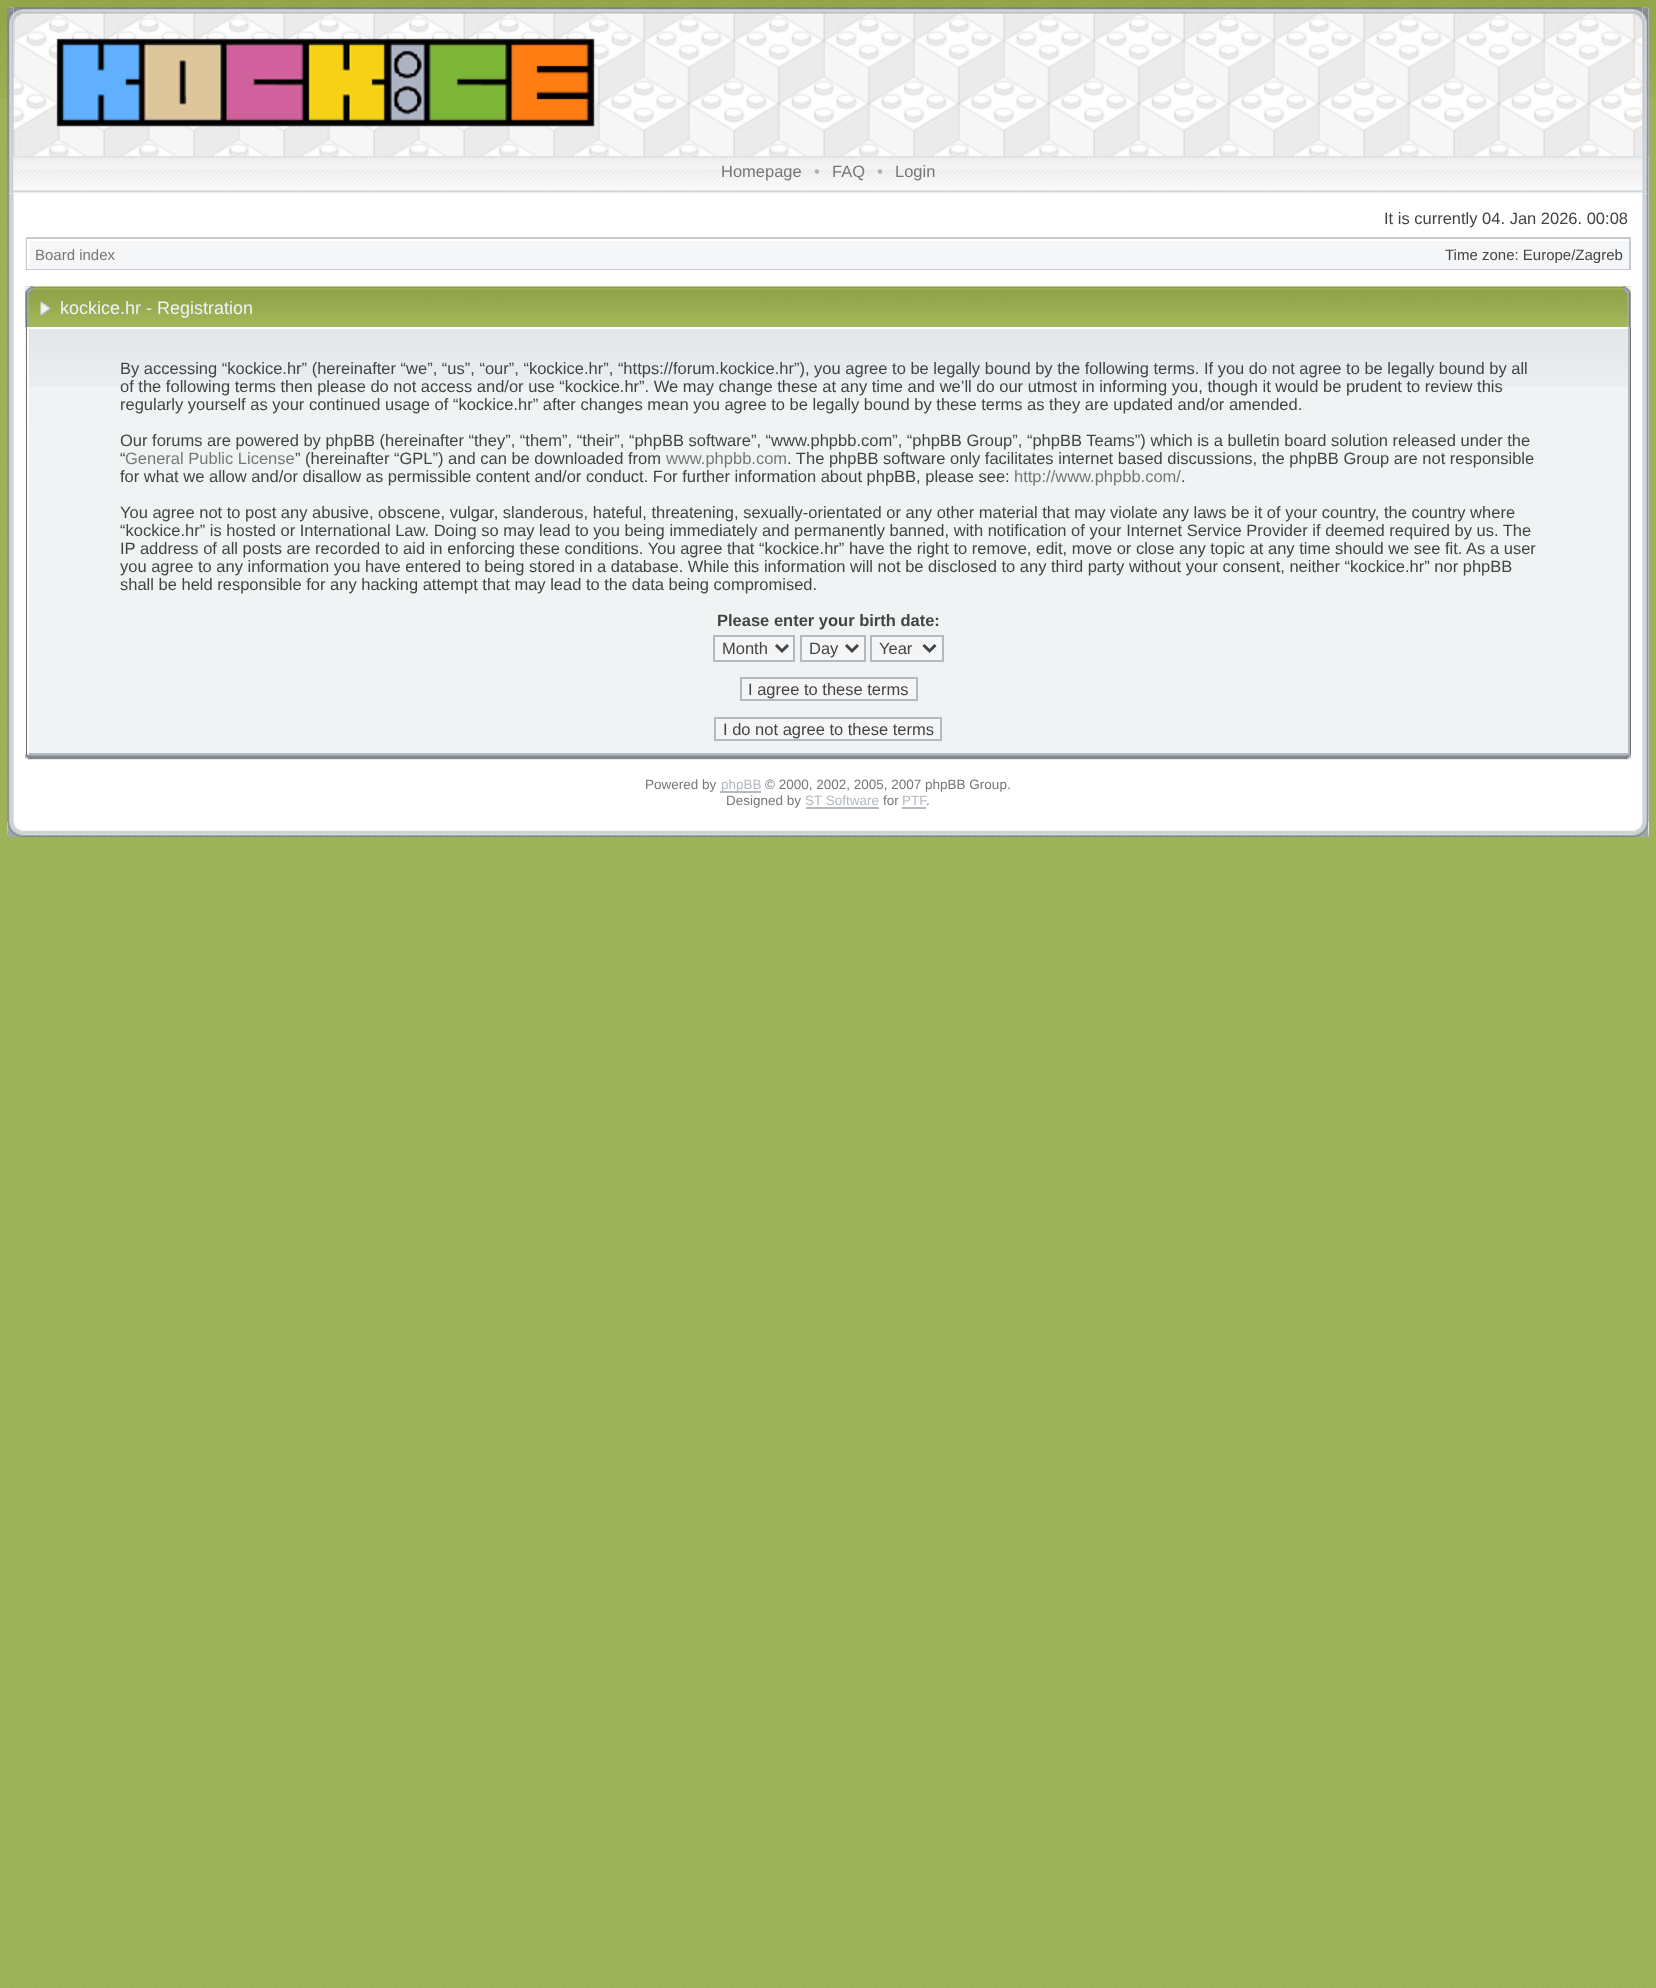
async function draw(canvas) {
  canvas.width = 1656;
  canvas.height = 1988;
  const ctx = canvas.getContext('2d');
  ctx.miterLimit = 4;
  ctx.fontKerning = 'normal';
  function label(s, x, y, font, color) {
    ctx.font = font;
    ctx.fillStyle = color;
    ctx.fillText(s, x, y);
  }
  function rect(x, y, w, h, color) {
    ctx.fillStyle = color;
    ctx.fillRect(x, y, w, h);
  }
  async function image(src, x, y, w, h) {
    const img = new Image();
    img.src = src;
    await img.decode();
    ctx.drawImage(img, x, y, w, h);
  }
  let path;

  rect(0, 0, 1656, 1988, '#fff');
  await image('assets/img1.png', 0, 98, 1656, 1890);
  await image('assets/img2.png', 0, 0, 1656, 98);
  rect(8, 8, 1641, 829, '#fff');
  await image('assets/img5.png', 13, 7, 1630, 149);
  await image('assets/img6.png', 13, 7, 10, 15);
  await image('assets/img3.png', 7, 7, 7, 187);
  await image('assets/img4.png', 7, 7, 7, 150);
  await image('assets/img7.png', 1633, 7, 10, 16);
  await image('assets/img8.png', 56, 38, 539, 89);
  await image('assets/img9.png', 13, 156, 1630, 38);
  label('Homepage', 721, 177, '16.5px Liberation Sans', '#777');
  label('•', 814, 177, '16.5px Liberation Sans', '#a8afb3');
  label('FAQ', 832, 177, '16.5px Liberation Sans', '#777');
  label('•', 877, 177, '16.5px Liberation Sans', '#a8afb3');
  label('Login', 895, 177, '16.5px Liberation Sans', '#777');
  await image('assets/img10.png', 1642, 7, 7, 187);
  await image('assets/img11.png', 1642, 7, 7, 151);
  await image('assets/img12.png', 7, 193, 7, 629);
  label('It is currently 04. Jan 2026. 00:08', 1384, 224, '16.5px Liberation Sans', '#444');
  await image('assets/img13.png', 25, 238, 1, 32);
  ctx.strokeStyle = '#c6cacf';
  ctx.lineWidth = 2;
  ctx.strokeRect(27, 238, 1603, 31);
  rect(29, 241, 1600, 28, '#f4f6f8');
  rect(27, 239, 1, 2, '#fff');
  rect(27, 239, 2, 30, '#fff');
  label('Board index', 35, 260, '15px Liberation Sans', '#777');
  label('Time zone: Europe/Zagreb', 1445, 260, '15px Liberation Sans', '#444');
  await image('assets/img14.png', 25, 754, 1606, 6);
  await image('assets/img15.png', 25, 286, 1606, 41);
  await image('assets/img16.png', 25, 286, 27, 41);
  await image('assets/img17.png', 1622, 286, 9, 41);
  label('kockice.hr - Registration', 60, 314, '18px Liberation Sans', '#eff3f6');
  await image('assets/img18.png', 25, 327, 1, 98);
  rect(1630, 327, 1, 428, '#6e747a');
  rect(26, 327, 1, 428, '#6e747a');
  rect(29, 387, 1599, 366, '#f0f3f4');
  await image('assets/img19.png', 29, 329, 1599, 58);
  rect(1628, 327, 2, 428, '#b4b9bf');
  rect(27, 753, 1602, 2, '#b4b9bf');
  rect(27, 753, 2, 2, '#fff');
  label('By accessing “kockice.hr” (hereinafter “we”, “us”, “our”, “kockice.hr”, “https://forum.kockice.hr”), you agree to be legally bound by the following terms. If you do not agree to be legally bound by all', 120, 374, '16.5px Liberation Sans', '#444');
  label('of the following terms then please do not access and/or use “kockice.hr”. We may change these at any time and we’ll do our utmost in informing you, though it would be prudent to review this', 120, 392, '16.5px Liberation Sans', '#444');
  label('regularly yourself as your continued usage of “kockice.hr” after changes mean you agree to be legally bound by these terms as they are updated and/or amended.', 120, 410, '16.5px Liberation Sans', '#444');
  label('Our forums are powered by phpBB (hereinafter “they”, “them”, “their”, “phpBB software”, “www.phpbb.com”, “phpBB Group”, “phpBB Teams”) which is a bulletin board solution released under the', 120, 446, '16.5px Liberation Sans', '#444');
  label('“', 120, 464, '16.5px Liberation Sans', '#444');
  label('General Public License', 125, 464, '16.5px Liberation Sans', '#777');
  label('” (hereinafter “GPL”) and can be downloaded from', 295, 464, '16.5px Liberation Sans', '#444');
  label('www.phpbb.com', 666, 464, '16.5px Liberation Sans', '#777');
  label('. The phpBB software only facilitates internet based discussions, the phpBB Group are not responsible', 787, 464, '16.5px Liberation Sans', '#444');
  label('for what we allow and/or disallow as permissible content and/or conduct. For further information about phpBB, please see:', 120, 482, '16.5px Liberation Sans', '#444');
  label('http://www.phpbb.com/', 1014, 482, '16.5px Liberation Sans', '#777');
  label('.', 1181, 482, '16.5px Liberation Sans', '#444');
  label('You agree not to post any abusive, obscene, vulgar, slanderous, hateful, threatening, sexually-orientated or any other material that may violate any laws be it of your country, the country where', 120, 518, '16.5px Liberation Sans', '#444');
  label('“kockice.hr” is hosted or International Law. Doing so may lead to you being immediately and permanently banned, with notification of your Internet Service Provider if deemed required by us. The', 120, 536, '16.5px Liberation Sans', '#444');
  label('IP address of all posts are recorded to aid in enforcing these conditions. You agree that “kockice.hr” have the right to remove, edit, move or close any topic at any time should we see fit. As a user', 120, 554, '16.5px Liberation Sans', '#444');
  label('you agree to any information you have entered to being stored in a database. While this information will not be disclosed to any third party without your consent, neither “kockice.hr” nor phpBB', 120, 572, '16.5px Liberation Sans', '#444');
  label('shall be held responsible for any hacking attempt that may lead to the data being compromised.', 120, 590, '16.5px Liberation Sans', '#444');
  label('Please enter your birth date:', 717, 626, 'bold 16.5px Liberation Sans', '#444');
  ctx.fillStyle = '#f3f5f7';
  ctx.beginPath();
  ctx.rect(714, 636, 80, 25);
  ctx.fill();
  ctx.strokeStyle = '#b4b9bf';
  ctx.stroke();
  path = new Path2D('M776 645L782 651L788 645');
  ctx.strokeStyle = '#444';
  ctx.lineWidth = 3;
  ctx.stroke(path);
  label('Month', 722, 654, '16.5px Liberation Sans', '#444');
  ctx.fillStyle = '#f3f5f7';
  ctx.beginPath();
  ctx.rect(801, 636, 64, 25);
  ctx.fill();
  ctx.strokeStyle = '#b4b9bf';
  ctx.lineWidth = 2;
  ctx.stroke();
  path = new Path2D('M846 645L852 651L858 645');
  ctx.strokeStyle = '#444';
  ctx.lineWidth = 3;
  ctx.stroke(path);
  label('Day', 809, 654, '16.5px Liberation Sans', '#444');
  ctx.fillStyle = '#f3f5f7';
  ctx.beginPath();
  ctx.rect(871, 636, 72, 25);
  ctx.fill();
  ctx.strokeStyle = '#b4b9bf';
  ctx.lineWidth = 2;
  ctx.stroke();
  path = new Path2D('M923.5 645L929.5 651L935.5 645');
  ctx.strokeStyle = '#444';
  ctx.lineWidth = 3;
  ctx.stroke(path);
  label('Year', 879, 654, '16.5px Liberation Sans', '#444');
  ctx.fillStyle = '#f3f5f7';
  ctx.beginPath();
  ctx.rect(741, 678, 176, 22);
  ctx.fill();
  ctx.strokeStyle = '#b4b9bf';
  ctx.lineWidth = 2;
  ctx.stroke();
  label('I agree to these terms', 748, 695, '16.5px Liberation Sans', '#444');
  ctx.fillStyle = '#f3f5f7';
  ctx.beginPath();
  ctx.rect(715, 718, 226, 22);
  ctx.fill();
  ctx.stroke();
  label('I do not agree to these terms', 723, 735, '16.5px Liberation Sans', '#444');
  await image('assets/img20.png', 25, 754, 7, 6);
  await image('assets/img21.png', 1625, 754, 6, 6);
  label('Powered by', 645, 789, '13.5px Liberation Sans', '#777');
  rect(720, 791, 41, 2, '#b4b9bf');
  label('phpBB', 721, 789, '13.5px Liberation Sans', '#b4b9bf');
  label('© 2000, 2002, 2005, 2007 phpBB Group.', 765, 789, '13.5px Liberation Sans', '#777');
  label('Designed by', 726, 805, '13.5px Liberation Sans', '#777');
  label('ST Software', 805, 805, '13.5px Liberation Sans', '#b4b9bf');
  rect(806, 807, 73, 2, '#b4b9bf');
  label('for', 883, 805, '13.5px Liberation Sans', '#777');
  label('PTF', 902, 805, '13.5px Liberation Sans', '#b4b9bf');
  label('.', 926, 805, '13.5px Liberation Sans', '#777');
  rect(902, 807, 24, 2, '#b4b9bf');
  await image('assets/img22.png', 1642, 193, 7, 629);
  await image('assets/img23.png', 7, 822, 1642, 15);
  await image('assets/img24.png', 7, 822, 14, 15);
  await image('assets/img25.png', 1634, 822, 15, 15);
}

draw(document.querySelector('canvas'));
